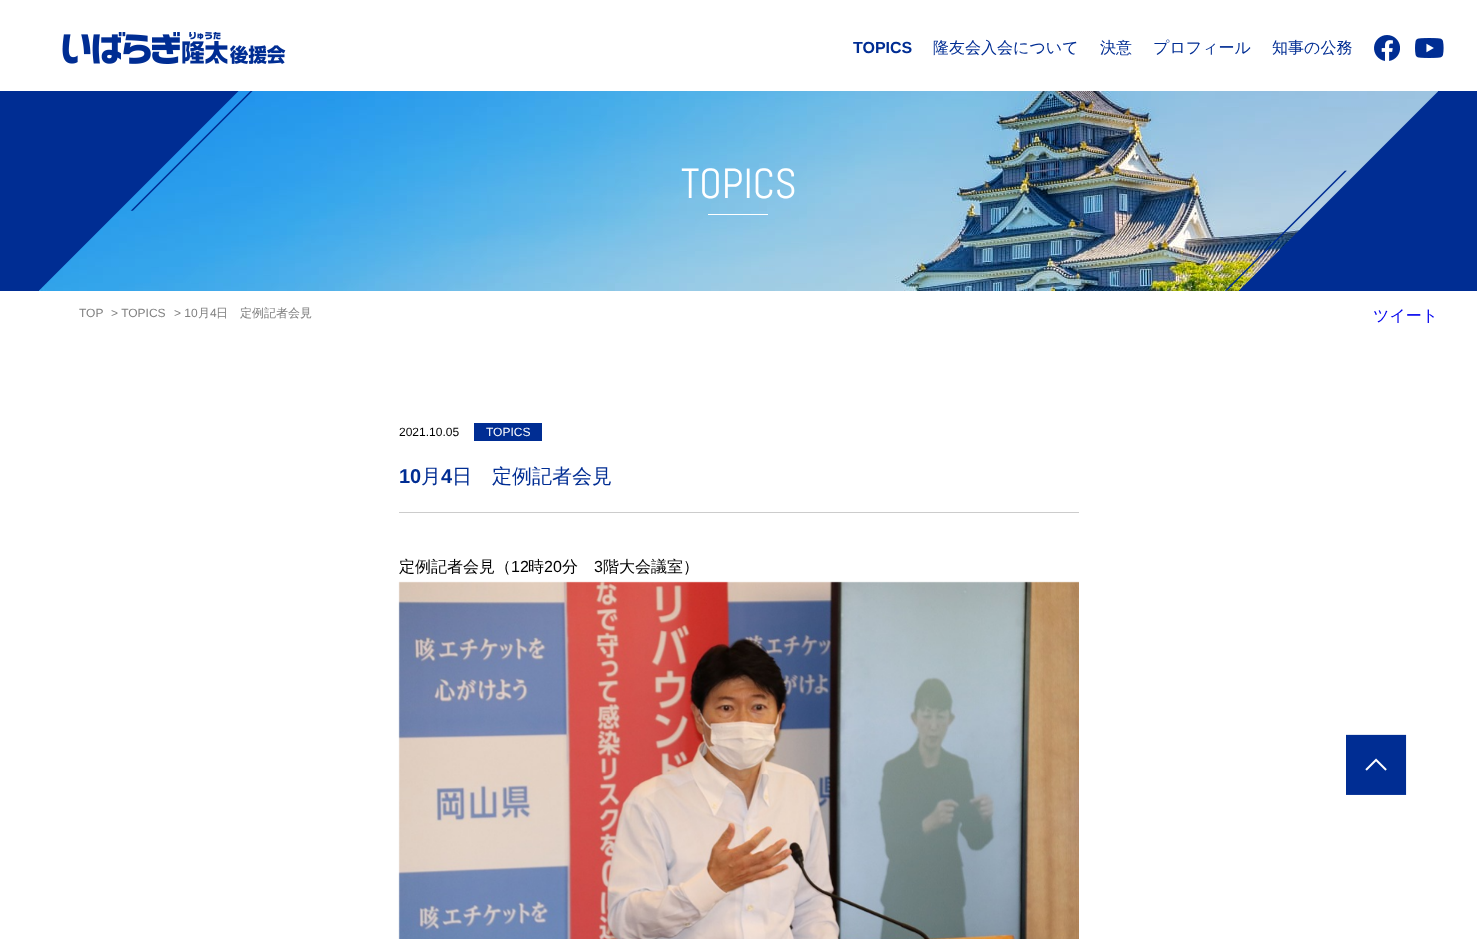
async function draw(canvas) {
  canvas.width = 1477;
  canvas.height = 939;
  const ctx = canvas.getContext('2d');
  ctx.miterLimit = 4;
  ctx.fontKerning = 'normal';
  function label(s, x, y, font, color) {
    ctx.font = font;
    ctx.fillStyle = color;
    ctx.fillText(s, x, y);
  }
  function rect(x, y, w, h, color) {
    ctx.fillStyle = color;
    ctx.fillRect(x, y, w, h);
  }
  async function image(src, x, y, w, h) {
    const img = new Image();
    img.src = src;
    await img.decode();
    ctx.drawImage(img, x, y, w, h);
  }

  rect(0, 0, 1477, 939, '#fff');
  await image('assets/img1.png', 62, 32, 224, 32);
  label('TOPICS', 853, 53, 'bold 16px Liberation Sans', '#002d93');
  label('隆友会入会について', 933, 53, '500 16px WenQuanYi Zen Hei', '#002d93');
  label('決意', 1100, 53, '500 16px WenQuanYi Zen Hei', '#002d93');
  label('プロフィール', 1153, 53, '500 16px WenQuanYi Zen Hei', '#002d93');
  label('知事の公務', 1272, 53, '500 16px WenQuanYi Zen Hei', '#002d93');
  await image('assets/img2.png', 1374, 35, 26, 26);
  await image('assets/img3.png', 1415, 38, 29, 20);
  rect(0, 91, 1477, 200, '#002d93');
  await image('assets/img4.png', 39, 91, 1399, 200);
  await image('assets/img5.png', 39, 91, 1400, 200);
  label('TOPICS', 681, 198, '42px Abel', '#fff');
  rect(708, 214, 60, 1, '#fff');
  label('TOP', 79, 317, '12px Liberation Sans', '#808080');
  label('> TOPICS', 111, 317, '12px Liberation Sans', '#808080');
  label('> 10', 174, 317, '12px Liberation Sans', '#808080');
  label('月', 198, 317, '500 12px WenQuanYi Zen Hei', '#808080');
  label('4', 210, 317, '12px Liberation Sans', '#808080');
  label('日　定例記者会見', 216, 317, '500 12px WenQuanYi Zen Hei', '#808080');
  label('ツイート', 1373, 321, '500 16px WenQuanYi Zen Hei', '#00e');
  label('2021.10.05', 399, 436, '12px Liberation Sans', '#000');
  rect(474, 423, 68, 18, '#002d93');
  label('TOPICS', 486, 436, '12px Liberation Sans', '#fff');
  label('10', 399, 483, 'bold 20px Liberation Sans', '#002d93');
  label('月', 421, 483, '500 20px WenQuanYi Zen Hei', '#002d93');
  label('4', 441, 483, 'bold 20px Liberation Sans', '#002d93');
  label('日　定例記者会見', 452, 483, '500 20px WenQuanYi Zen Hei', '#002d93');
  rect(399, 512, 680, 1, '#ccc');
  label('定例記者会見（', 399, 572, '500 16px WenQuanYi Zen Hei', '#000');
  label('12', 511, 572, '16px Liberation Sans', '#000');
  label('時', 528, 572, '500 16px WenQuanYi Zen Hei', '#000');
  label('20', 544, 572, '16px Liberation Sans', '#000');
  label('分', 562, 572, '500 16px WenQuanYi Zen Hei', '#000');
  label('3', 594, 572, '16px Liberation Sans', '#000');
  label('階大会議室）', 603, 572, '500 16px WenQuanYi Zen Hei', '#000');
  await image('assets/img6.png', 398, 581, 681, 358);
  await image('assets/img7.png', 1346, 734, 61, 61);
}

draw(document.querySelector('canvas'));
